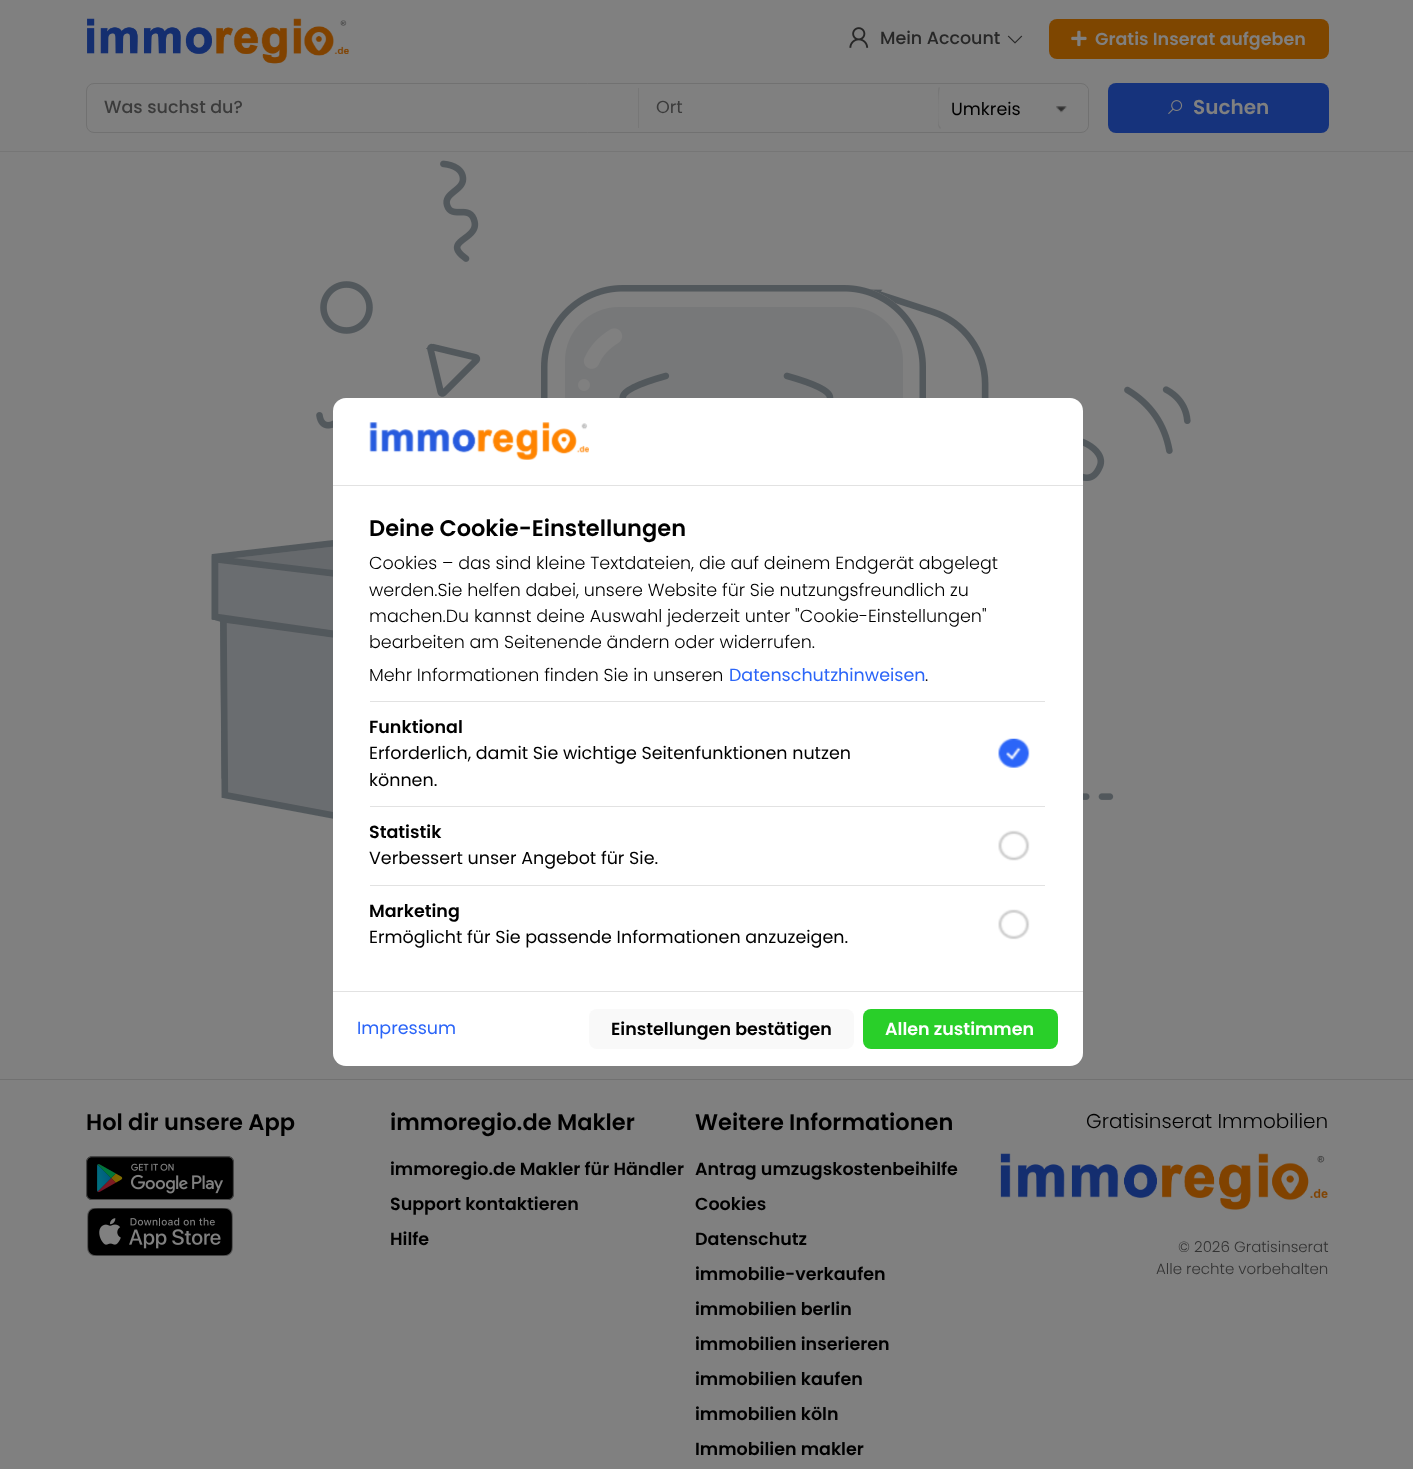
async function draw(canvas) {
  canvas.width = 1413;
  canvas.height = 1469;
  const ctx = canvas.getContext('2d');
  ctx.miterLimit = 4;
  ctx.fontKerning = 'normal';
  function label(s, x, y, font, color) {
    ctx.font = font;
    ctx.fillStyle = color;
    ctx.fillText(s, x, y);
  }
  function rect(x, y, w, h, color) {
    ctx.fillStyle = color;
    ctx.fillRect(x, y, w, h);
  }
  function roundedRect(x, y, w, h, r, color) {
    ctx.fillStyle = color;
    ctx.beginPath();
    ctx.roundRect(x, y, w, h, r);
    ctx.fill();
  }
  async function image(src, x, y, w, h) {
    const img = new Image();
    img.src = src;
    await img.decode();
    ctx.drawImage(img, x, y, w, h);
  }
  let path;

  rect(0, 0, 1413, 1469, '#808080');
  rect(0, 151, 1413, 1, '#767676');
  await image('assets/img1.png', 87, 18, 262, 46);
  await image('assets/img2.png', 849, 27, 20, 21);
  label('Mein Account', 880, 44, '500 17.5px Poppins', '#272727');
  await image('assets/img3.png', 1007, 35, 16, 9);
  roundedRect(1049, 19, 280, 40, 8, '#7e4600');
  await image('assets/img4.png', 1071, 30, 16, 17);
  label('Gratis Inserat aufgeben', 1095, 45, '600 17.5px Poppins', '#808080');
  ctx.beginPath();
  ctx.roundRect(86.5, 83.5, 1002, 49, 7.5);
  ctx.strokeStyle = '#717171';
  ctx.stroke();
  label('Was suchst du?', 104, 113, '500 17.5px Poppins', '#3b3b3b');
  rect(638, 88, 1, 40, '#777');
  label('Ort', 656, 113, '17.5px Poppins', '#3b3b3b');
  await image('assets/img5.png', 1056, 106, 11, 7);
  ctx.fillStyle = '#808080';
  path = new Path2D('M1088 126L1085 129L1084 128L1086 125C1087 122 1087 91 1085 88L1086 87L1088 89Z');
  ctx.fill(path);
  ctx.fillStyle = '#777';
  path = new Path2D('M939 87C938 88 938 90 938 91V124C938 126 939 128 940 129L941 128L939 125C938 122 938 91 940 88Z');
  ctx.fill(path);
  label('Umkreis', 951, 115, '17.5px Poppins', '#000');
  roundedRect(1108, 83, 221, 50, 8, '#16337c');
  await image('assets/img6.png', 1168, 100, 15, 14);
  label('Suchen', 1193, 114, '600 20px Poppins', '#808080');
  await image('assets/img7.png', 211, 160, 980, 659);
  roundedRect(333, 398, 750, 668, 13, '#fff');
  rect(333, 485, 750, 1, '#e2e2e2');
  await image('assets/img8.png', 369, 422, 220, 38);
  label('Deine Cookie-Einstellungen', 369, 536, '600 22.5px Poppins', '#000');
  label('Cookies – das sind kleine Textdateien, die auf deinem Endgerät abgelegt', 369, 569, '300 17.5px Poppins', '#000');
  label('werden.Sie helfen dabei, unsere Website für Sie nutzungsfreundlich zu', 369, 596, '300 17.5px Poppins', '#000');
  label('machen.Du kannst deine Auswahl jederzeit unter "Cookie-Einstellungen"', 369, 622, '300 17.5px Poppins', '#000');
  label('bearbeiten am Seitenende ändern oder widerrufen.', 369, 648, '300 17.5px Poppins', '#000');
  label('Mehr Informationen finden Sie in unseren', 369, 681, '300 17.5px Poppins', '#000');
  label('Datenschutzhinweisen', 729, 681, '17.5px Poppins', '#2b65f8');
  label('.', 925, 681, '300 17.5px Poppins', '#000');
  rect(370, 701, 675, 1, '#e2e2e2');
  label('Funktional', 369, 733, '600 17.5px Poppins', '#000');
  label('Erforderlich, damit Sie wichtige Seitenfunktionen nutzen', 369, 759, '17.5px Poppins', '#000');
  label('können.', 369, 786, '17.5px Poppins', '#000');
  await image('assets/img9.png', 998, 738, 32, 30);
  rect(370, 806, 675, 1, '#e2e2e2');
  label('Statistik', 369, 838, '600 17.5px Poppins', '#000');
  label('Verbessert unser Angebot für Sie.', 369, 864, '17.5px Poppins', '#000');
  await image('assets/img10.png', 998, 830, 32, 31);
  rect(370, 885, 675, 1, '#e2e2e2');
  label('Marketing', 369, 917, '600 17.5px Poppins', '#000');
  label('Ermöglicht für Sie passende Informationen anzuzeigen.', 369, 943, '17.5px Poppins', '#000');
  await image('assets/img11.png', 998, 909, 32, 31);
  rect(333, 991, 750, 1, '#e2e2e2');
  label('Impressum', 357, 1034, '17.5px Poppins', '#2b65f8');
  roundedRect(589, 1009, 265, 40, 8, '#f9f9f9');
  label('Einstellungen bestätigen', 611, 1035, '600 17.5px Poppins', '#000');
  roundedRect(863, 1009, 195, 40, 8, '#29cf29');
  label('Allen zustimmen', 885, 1035, '600 17.5px Poppins', '#fff');
  rect(0, 1079, 1413, 1, '#717171');
  label('Hol dir unsere App', 86, 1130, '600 22.5px Poppins', '#000');
  await image('assets/img12.png', 86, 1156, 148, 44);
  await image('assets/img13.png', 87, 1208, 146, 48);
  label('immoregio.de Makler', 390, 1130, '600 22.5px Poppins', '#000');
  label('immoregio.de Makler für Händler', 390, 1175, '600 17.5px Poppins', '#000');
  label('Support kontaktieren', 390, 1210, '600 17.5px Poppins', '#000');
  label('Hilfe', 390, 1245, '600 17.5px Poppins', '#000');
  label('Weitere Informationen', 695, 1130, '600 22.5px Poppins', '#000');
  label('Antrag umzugskostenbeihilfe', 695, 1175, '600 17.5px Poppins', '#000');
  label('Cookies', 695, 1210, '600 17.5px Poppins', '#000');
  label('Datenschutz', 695, 1245, '600 17.5px Poppins', '#000');
  label('immobilie-verkaufen', 695, 1280, '600 17.5px Poppins', '#000');
  label('immobilien berlin', 695, 1315, '600 17.5px Poppins', '#000');
  label('immobilien inserieren', 695, 1350, '600 17.5px Poppins', '#000');
  label('immobilien kaufen', 695, 1385, '600 17.5px Poppins', '#000');
  label('immobilien köln', 695, 1420, '600 17.5px Poppins', '#000');
  label('Immobilien makler', 695, 1455, '600 17.5px Poppins', '#000');
  label('Gratisinserat Immobilien', 1086, 1128, '300 20px Poppins', '#000');
  await image('assets/img14.png', 1000, 1153, 328, 57);
  label('© 2026 Gratisinserat', 1178, 1252, '300 15px Poppins', '#333');
  label('Alle rechte vorbehalten', 1156, 1274, '300 15px Poppins', '#333');
}

draw(document.querySelector('canvas'));
